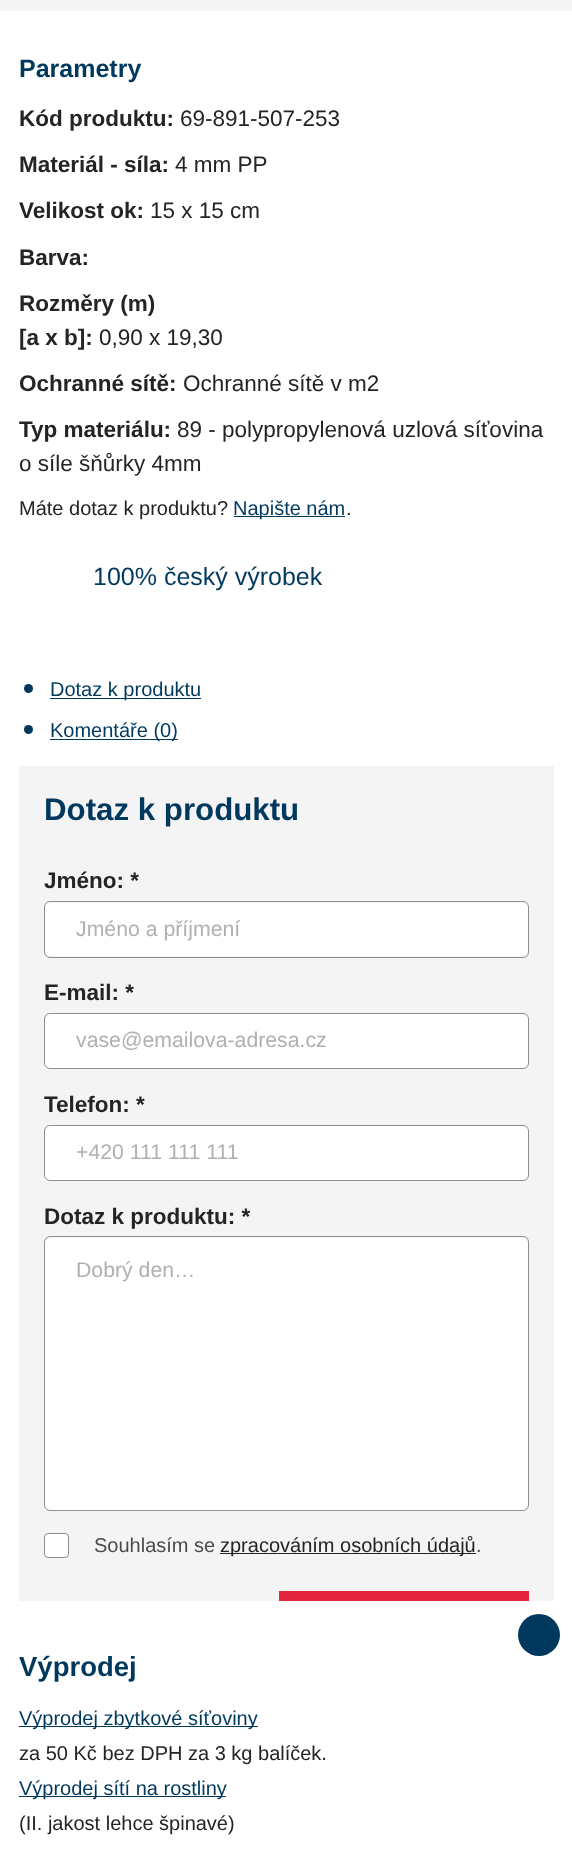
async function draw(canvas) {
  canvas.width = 572;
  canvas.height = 1866;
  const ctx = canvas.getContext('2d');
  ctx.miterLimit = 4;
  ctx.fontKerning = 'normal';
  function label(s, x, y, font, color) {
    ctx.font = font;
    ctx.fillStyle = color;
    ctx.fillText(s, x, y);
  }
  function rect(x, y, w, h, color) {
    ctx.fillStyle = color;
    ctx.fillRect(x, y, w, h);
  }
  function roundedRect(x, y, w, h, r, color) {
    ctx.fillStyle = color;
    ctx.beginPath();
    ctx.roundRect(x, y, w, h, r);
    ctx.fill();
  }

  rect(0, 0, 572, 1866, '#fff');
  rect(0, 0, 572, 11, '#f4f4f4');
  label('Parametry', 19, 77, 'bold 25px Liberation Sans', '#00395d');
  label('Kód produktu:', 19, 126, 'bold 22.5px Liberation Sans', '#242424');
  label('69-891-507-253', 180, 126, '22.5px Liberation Sans', '#242424');
  label('Materiál - síla:', 19, 172, 'bold 22.5px Liberation Sans', '#242424');
  label('4 mm PP', 175, 172, '22.5px Liberation Sans', '#242424');
  label('Velikost ok:', 19, 218, 'bold 22.5px Liberation Sans', '#242424');
  label('15 x 15 cm', 150, 218, '22.5px Liberation Sans', '#242424');
  label('Barva:', 19, 265, 'bold 22.5px Liberation Sans', '#242424');
  label('Rozměry (m)', 19, 311, 'bold 22.5px Liberation Sans', '#242424');
  label('[a x b]:', 19, 345, 'bold 22.5px Liberation Sans', '#242424');
  label('0,90 x 19,30', 99, 345, '22.5px Liberation Sans', '#242424');
  label('Ochranné sítě:', 19, 391, 'bold 22.5px Liberation Sans', '#242424');
  label('Ochranné sítě v m2', 183, 391, '22.5px Liberation Sans', '#242424');
  label('Typ materiálu:', 19, 437, 'bold 22.5px Liberation Sans', '#242424');
  label('89 - polypropylenová uzlová síťovina', 177, 437, '22.5px Liberation Sans', '#242424');
  label('o síle šňůrky 4mm', 19, 471, '22.5px Liberation Sans', '#242424');
  label('Máte dotaz k produktu?', 19, 515, '20px Liberation Sans', '#242424');
  rect(234, 516, 111, 1, '#00395d');
  label('Napište nám', 233, 515, '20px Liberation Sans', '#00395d');
  label('.', 346, 515, '20px Liberation Sans', '#242424');
  label('100% český výrobek', 93, 585, '25px Liberation Sans', '#00395d');
  ctx.beginPath();
  ctx.arc(28.5, 688.5, 4.5, 0, 2 * Math.PI);
  ctx.fill();
  rect(50, 698, 151, 1, '#00395d');
  label('Dotaz k produktu', 50, 696, '20px Liberation Sans', '#00395d');
  ctx.beginPath();
  ctx.arc(28.5, 729.5, 4.5, 0, 2 * Math.PI);
  ctx.fill();
  rect(50, 739, 128, 1, '#00395d');
  label('Komentáře (0)', 50, 737, '20px Liberation Sans', '#00395d');
  rect(19, 766, 535, 835, '#f4f4f4');
  label('Dotaz k produktu', 44, 820, 'bold 31.25px Liberation Sans', '#00395d');
  label('Jméno: *', 44, 888, 'bold 22.5px Liberation Sans', '#242424');
  roundedRect(45, 903, 483, 53, 5, '#fff');
  ctx.beginPath();
  ctx.roundRect(44.5, 901.5, 484, 56, 5.5);
  ctx.strokeStyle = '#8f8f8f';
  ctx.stroke();
  label('Jméno a příjmení', 76, 936, '21.25px Liberation Sans', '#b0b0b0');
  label('E-mail: *', 44, 1000, 'bold 22.5px Liberation Sans', '#242424');
  ctx.fillStyle = '#fff';
  ctx.beginPath();
  ctx.roundRect(44.5, 1013.5, 484, 55, 5.5);
  ctx.fill();
  ctx.stroke();
  label('vase@emailova-adresa.cz', 76, 1047, '21.25px Liberation Sans', '#b0b0b0');
  label('Telefon: *', 44, 1112, 'bold 22.5px Liberation Sans', '#242424');
  ctx.fillStyle = '#fff';
  ctx.beginPath();
  ctx.roundRect(44.5, 1125.5, 484, 55, 5.5);
  ctx.fill();
  ctx.stroke();
  label('+420 111 111 111', 76, 1159, '21.25px Liberation Sans', '#b0b0b0');
  label('Dotaz k produktu: *', 44, 1224, 'bold 22.5px Liberation Sans', '#242424');
  roundedRect(45, 1238, 483, 272, 5, '#fff');
  ctx.beginPath();
  ctx.roundRect(44.5, 1236.5, 484, 274, 5.5);
  ctx.stroke();
  label('Dobrý den…', 76, 1277, '21.25px Liberation Sans', '#b0b0b0');
  ctx.fillStyle = '#fff';
  ctx.beginPath();
  ctx.roundRect(44.5, 1533.5, 24, 24, 3.5);
  ctx.fill();
  ctx.stroke();
  label('Souhlasím se', 94, 1552, '20px Liberation Sans', '#4b4b4b');
  rect(220, 1553, 256, 1, '#242424');
  label('zpracováním osobních údajů', 220, 1552, '20px Liberation Sans', '#242424');
  label('.', 476, 1552, '20px Liberation Sans', '#4b4b4b');
  rect(279, 1591, 250, 10, '#e42540');
  ctx.fillStyle = '#00395d';
  ctx.beginPath();
  ctx.arc(539, 1635, 21, 0, 2 * Math.PI);
  ctx.fill();
  label('Výprodej', 19, 1676, 'bold 27.5px Liberation Sans', '#00395d');
  rect(19, 1726, 239, 1, '#00395d');
  label('Výprodej zbytkové síťoviny', 19, 1725, '20px Liberation Sans', '#00395d');
  label('za 50 Kč bez DPH za 3 kg balíček.', 19, 1760, '20px Liberation Sans', '#242424');
  rect(19, 1796, 207, 1, '#00395d');
  label('Výprodej sítí na rostliny', 19, 1795, '20px Liberation Sans', '#00395d');
  label('(II. jakost lehce špinavé)', 19, 1830, '20px Liberation Sans', '#242424');
}

draw(document.querySelector('canvas'));
